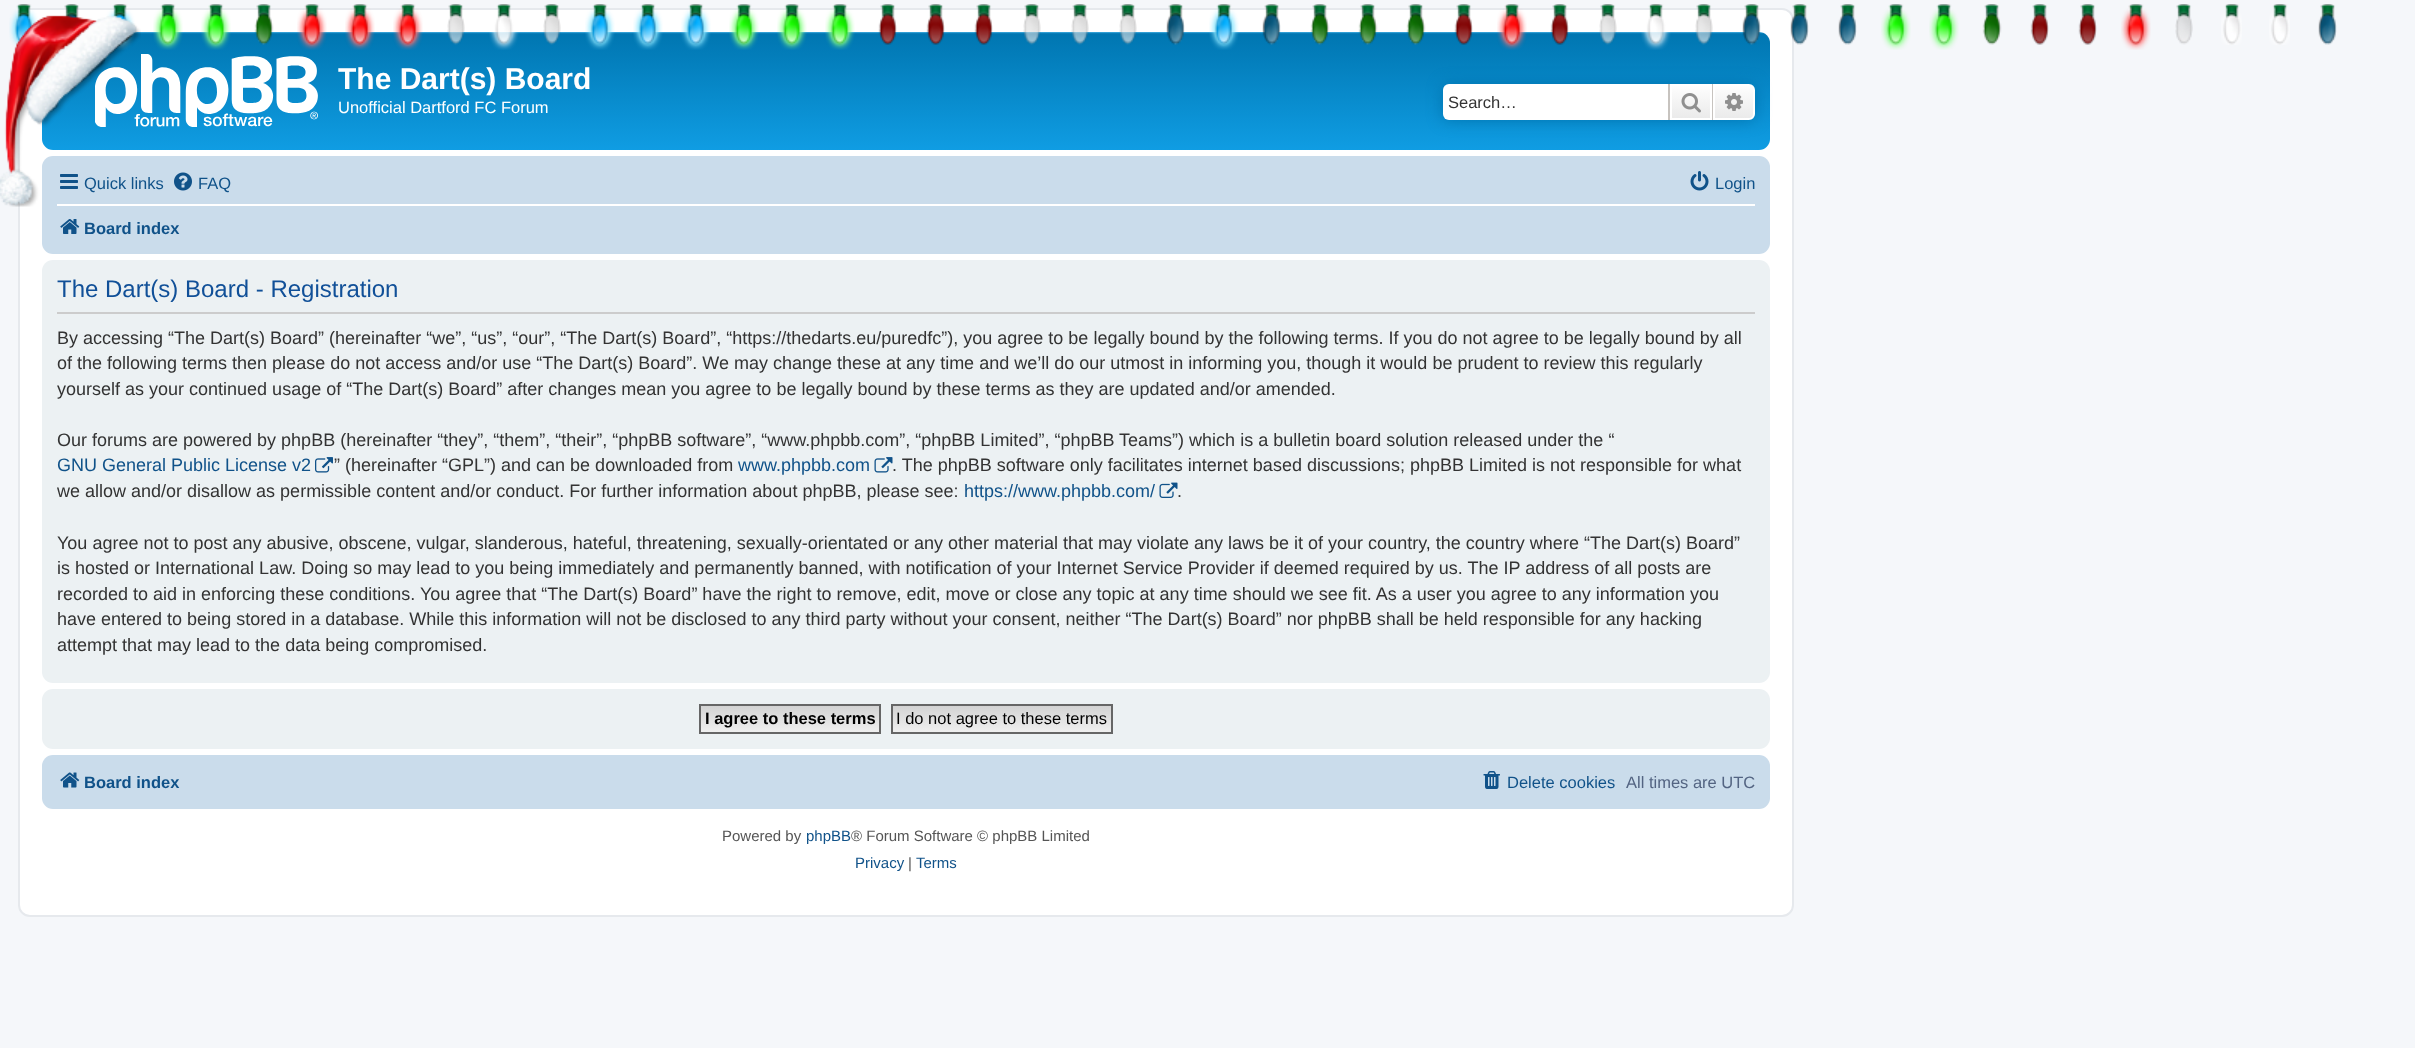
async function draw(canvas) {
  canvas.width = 2415;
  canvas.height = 1048;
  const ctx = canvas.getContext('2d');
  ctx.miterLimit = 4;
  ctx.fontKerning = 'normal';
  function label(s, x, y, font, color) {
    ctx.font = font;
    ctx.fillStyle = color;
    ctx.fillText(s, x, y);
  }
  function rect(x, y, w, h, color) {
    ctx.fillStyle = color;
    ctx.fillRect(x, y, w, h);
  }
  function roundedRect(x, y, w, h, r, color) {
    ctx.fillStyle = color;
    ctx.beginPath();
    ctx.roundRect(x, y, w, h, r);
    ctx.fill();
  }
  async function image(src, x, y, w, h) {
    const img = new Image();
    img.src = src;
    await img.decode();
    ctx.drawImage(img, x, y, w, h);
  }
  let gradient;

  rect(0, 0, 2415, 1048, '#f5f7fa');
  ctx.fillStyle = '#fff';
  ctx.beginPath();
  ctx.roundRect(19, 9, 1774, 907, 11);
  ctx.fill();
  ctx.strokeStyle = '#e6e9ed';
  ctx.lineWidth = 2;
  ctx.stroke();
  await image('assets/img1.png', 9, 4, 30, 45);
  await image('assets/img2.png', 64, 4, 16, 16);
  gradient = ctx.createLinearGradient(906, 31, 906, 169);
  gradient.addColorStop(0, '#6aceff');
  gradient.addColorStop(0.02, '#0076b1');
  gradient.addColorStop(1, '#12a3eb');
  ctx.fillStyle = gradient;
  ctx.beginPath();
  ctx.roundRect(42, 32, 1728, 118, 11);
  ctx.fill();
  await image('assets/img3.png', 105, 4, 30, 46);
  await image('assets/img4.png', 153, 4, 30, 46);
  await image('assets/img4.png', 201, 4, 30, 46);
  await image('assets/img5.png', 254, 4, 20, 41);
  await image('assets/img6.png', 297, 4, 30, 46);
  await image('assets/img6.png', 345, 4, 30, 46);
  await image('assets/img6.png', 393, 4, 30, 46);
  await image('assets/img7.png', 447, 4, 18, 41);
  await image('assets/img8.png', 489, 4, 30, 46);
  await image('assets/img9.png', 543, 4, 18, 41);
  await image('assets/img10.png', 585, 4, 30, 46);
  await image('assets/img3.png', 633, 4, 30, 46);
  await image('assets/img3.png', 681, 4, 30, 46);
  await image('assets/img11.png', 729, 4, 30, 46);
  await image('assets/img4.png', 777, 4, 30, 46);
  await image('assets/img4.png', 825, 4, 30, 46);
  await image('assets/img12.png', 878, 4, 19, 41);
  await image('assets/img12.png', 926, 4, 19, 41);
  await image('assets/img12.png', 974, 4, 19, 41);
  await image('assets/img9.png', 1023, 4, 18, 41);
  await image('assets/img7.png', 1071, 4, 18, 41);
  await image('assets/img7.png', 1119, 4, 18, 41);
  await image('assets/img13.png', 1166, 4, 19, 41);
  await image('assets/img10.png', 1209, 4, 30, 46);
  await image('assets/img14.png', 1262, 4, 19, 41);
  await image('assets/img5.png', 1310, 4, 20, 41);
  await image('assets/img15.png', 1358, 4, 20, 41);
  await image('assets/img5.png', 1406, 4, 20, 41);
  await image('assets/img12.png', 1454, 4, 19, 41);
  await image('assets/img16.png', 1497, 4, 30, 46);
  await image('assets/img12.png', 1550, 4, 19, 41);
  await image('assets/img9.png', 1599, 4, 18, 41);
  await image('assets/img17.png', 1641, 4, 30, 46);
  await image('assets/img9.png', 1695, 4, 18, 41);
  await image('assets/img18.png', 1742, 4, 19, 41);
  await image('assets/img19.png', 1790, 4, 19, 41);
  await image('assets/img20.png', 1838, 4, 19, 41);
  await image('assets/img21.png', 1881, 4, 30, 46);
  await image('assets/img21.png', 1929, 4, 30, 46);
  await image('assets/img22.png', 1982, 4, 20, 41);
  await image('assets/img23.png', 2030, 4, 19, 41);
  await image('assets/img24.png', 2078, 4, 19, 41);
  await image('assets/img25.png', 2121, 4, 30, 46);
  await image('assets/img26.png', 2175, 4, 18, 41);
  await image('assets/img27.png', 2221, 4, 21, 41);
  await image('assets/img28.png', 2269, 4, 21, 41);
  await image('assets/img29.png', 2318, 4, 19, 41);
  await image('assets/img31.png', 95, 54, 223, 73);
  roundedRect(42, 156, 1728, 98, 11, '#cadceb');
  await image('assets/img34.png', 60, 174, 18, 15);
  label('Quick links', 84, 189, '16.5px Liberation Sans', '#105289');
  rect(57, 204, 1698, 2, '#fff');
  await image('assets/img30.png', 0, 15, 141, 192);
  label('The Dart(s) Board', 338, 89, 'bold 30px Liberation Sans', '#fff');
  label('Unofficial Dartford FC Forum', 338, 113, '16.5px Liberation Sans', '#fff');
  ctx.fillStyle = '#0075b0';
  ctx.filter = 'blur(7.5px)';
  ctx.beginPath();
  ctx.roundRect(1443, 84, 312, 36, 6);
  ctx.fill();
  ctx.filter = 'none';
  ctx.fillStyle = '#fff';
  ctx.beginPath();
  ctx.roundRect(1443, 84, 225, 36, [6, 0, 0, 6]);
  ctx.fill();
  label('Search…', 1448, 108, '16.5px Liberation Sans', '#333');
  gradient = ctx.createLinearGradient(1691, 84, 1691, 120);
  gradient.addColorStop(0, '#fff');
  gradient.addColorStop(1, '#e9e9e9');
  ctx.fillStyle = gradient;
  ctx.fillRect(1672, 86, 38, 32);
  ctx.strokeStyle = '#fff';
  ctx.strokeRect(1671, 85, 40, 34);
  rect(1712, 84, 1, 36, '#c7c3bf');
  rect(1668, 84, 2, 36, '#c7c3bf');
  await image('assets/img32.png', 1681, 93, 20, 20);
  gradient = ctx.createLinearGradient(1734, 84, 1734, 120);
  gradient.addColorStop(0, '#fff');
  gradient.addColorStop(1, '#e9e9e9');
  ctx.fillStyle = gradient;
  ctx.beginPath();
  ctx.roundRect(1714, 85, 40, 34, [0, 5, 5, 0]);
  ctx.fill();
  ctx.stroke();
  await image('assets/img33.png', 1725, 93, 18, 18);
  await image('assets/img35.png', 174, 172, 18, 19);
  label('FAQ', 198, 189, '16.5px Liberation Sans', '#105289');
  await image('assets/img36.png', 1690, 171, 19, 20);
  label('Login', 1715, 189, '16.5px Liberation Sans', '#105289');
  await image('assets/img37.png', 60, 219, 20, 15);
  label('Board index', 84, 234, 'bold 16.5px Liberation Sans', '#105289');
  roundedRect(42, 260, 1728, 423, 11, '#ecf1f3');
  rect(57, 312, 1698, 2, '#ccc');
  label('The Dart(s) Board - Registration', 57, 297, '24px Liberation Sans', '#115098');
  label('By accessing “The Dart(s) Board” (hereinafter “we”, “us”, “our”, “The Dart(s) Board”, “https://thedarts.eu/puredfc”), you agree to be legally bound by the following terms. If you do not agree to be legally bound by all', 57, 344, '18px Liberation Sans', '#333');
  label('of the following terms then please do not access and/or use “The Dart(s) Board”. We may change these at any time and we’ll do our utmost in informing you, though it would be prudent to review this regularly', 57, 369, '18px Liberation Sans', '#333');
  label('yourself as your continued usage of “The Dart(s) Board” after changes mean you agree to be legally bound by these terms as they are updated and/or amended.', 57, 395, '18px Liberation Sans', '#333');
  label('Our forums are powered by phpBB (hereinafter “they”, “them”, “their”, “phpBB software”, “www.phpbb.com”, “phpBB Limited”, “phpBB Teams”) which is a bulletin board solution released under the “', 57, 446, '18px Liberation Sans', '#333');
  label('GNU General Public License v2', 57, 471, '18px Liberation Sans', '#105289');
  await image('assets/img38.png', 315, 457, 18, 16);
  label('” (hereinafter “GPL”) and can be downloaded from', 334, 471, '18px Liberation Sans', '#333');
  label('www.phpbb.com', 738, 471, '18px Liberation Sans', '#105289');
  await image('assets/img39.png', 874, 457, 19, 16);
  label('. The phpBB software only facilitates internet based discussions; phpBB Limited is not responsible for what', 892, 471, '18px Liberation Sans', '#333');
  label('we allow and/or disallow as permissible content and/or conduct. For further information about phpBB, please see:', 57, 497, '18px Liberation Sans', '#333');
  label('https://www.phpbb.com/', 964, 497, '18px Liberation Sans', '#105289');
  await image('assets/img40.png', 1159, 482, 19, 16);
  label('.', 1177, 497, '18px Liberation Sans', '#333');
  label('You agree not to post any abusive, obscene, vulgar, slanderous, hateful, threatening, sexually-orientated or any other material that may violate any laws be it of your country, the country where “The Dart(s) Board”', 57, 549, '18px Liberation Sans', '#333');
  label('is hosted or International Law. Doing so may lead to you being immediately and permanently banned, with notification of your Internet Service Provider if deemed required by us. The IP address of all posts are', 57, 574, '18px Liberation Sans', '#333');
  label('recorded to aid in enforcing these conditions. You agree that “The Dart(s) Board” have the right to remove, edit, move or close any topic at any time should we see fit. As a user you agree to any information you', 57, 600, '18px Liberation Sans', '#333');
  label('have entered to being stored in a database. While this information will not be disclosed to any third party without your consent, neither “The Dart(s) Board” nor phpBB shall be held responsible for any hacking', 57, 625, '18px Liberation Sans', '#333');
  label('attempt that may lead to the data being compromised.', 57, 651, '18px Liberation Sans', '#333');
  roundedRect(42, 689, 1728, 60, 11, '#ecf1f3');
  gradient = ctx.createLinearGradient(790, 705, 790, 732);
  gradient.addColorStop(0, '#d2d2d2');
  gradient.addColorStop(1, '#efefef');
  ctx.fillStyle = gradient;
  ctx.fillRect(701, 706, 178, 26);
  ctx.strokeStyle = '#666';
  ctx.strokeRect(700, 705, 180, 28);
  label('I agree to these terms', 705, 724, 'bold 16.5px Liberation Sans', '#000');
  gradient = ctx.createLinearGradient(1002, 705, 1002, 732);
  gradient.addColorStop(0, '#d2d2d2');
  gradient.addColorStop(1, '#efefef');
  ctx.fillStyle = gradient;
  ctx.fillRect(893, 706, 218, 26);
  ctx.strokeRect(892, 705, 220, 28);
  label('I do not agree to these terms', 896, 724, '16.5px Liberation Sans', '#000');
  roundedRect(42, 755, 1728, 54, 11, '#cadceb');
  await image('assets/img41.png', 60, 772, 20, 16);
  label('Board index', 84, 788, 'bold 16.5px Liberation Sans', '#105289');
  await image('assets/img42.png', 1483, 771, 17, 18);
  label('Delete cookies', 1507, 788, '16.5px Liberation Sans', '#105289');
  label('All times are UTC', 1626, 788, '16.5px Liberation Sans', '#536482');
  label('Powered by', 722, 841, '15px Liberation Sans', '#555');
  label('phpBB', 806, 841, '15px Liberation Sans', '#105289');
  label('® Forum Software © phpBB Limited', 851, 841, '15px Liberation Sans', '#555');
  label('Privacy', 855, 868, '15px Liberation Sans', '#105289');
  label('|', 908, 868, '15px Liberation Sans', '#555');
  label('Terms', 916, 868, '15px Liberation Sans', '#105289');
}

draw(document.querySelector('canvas'));
